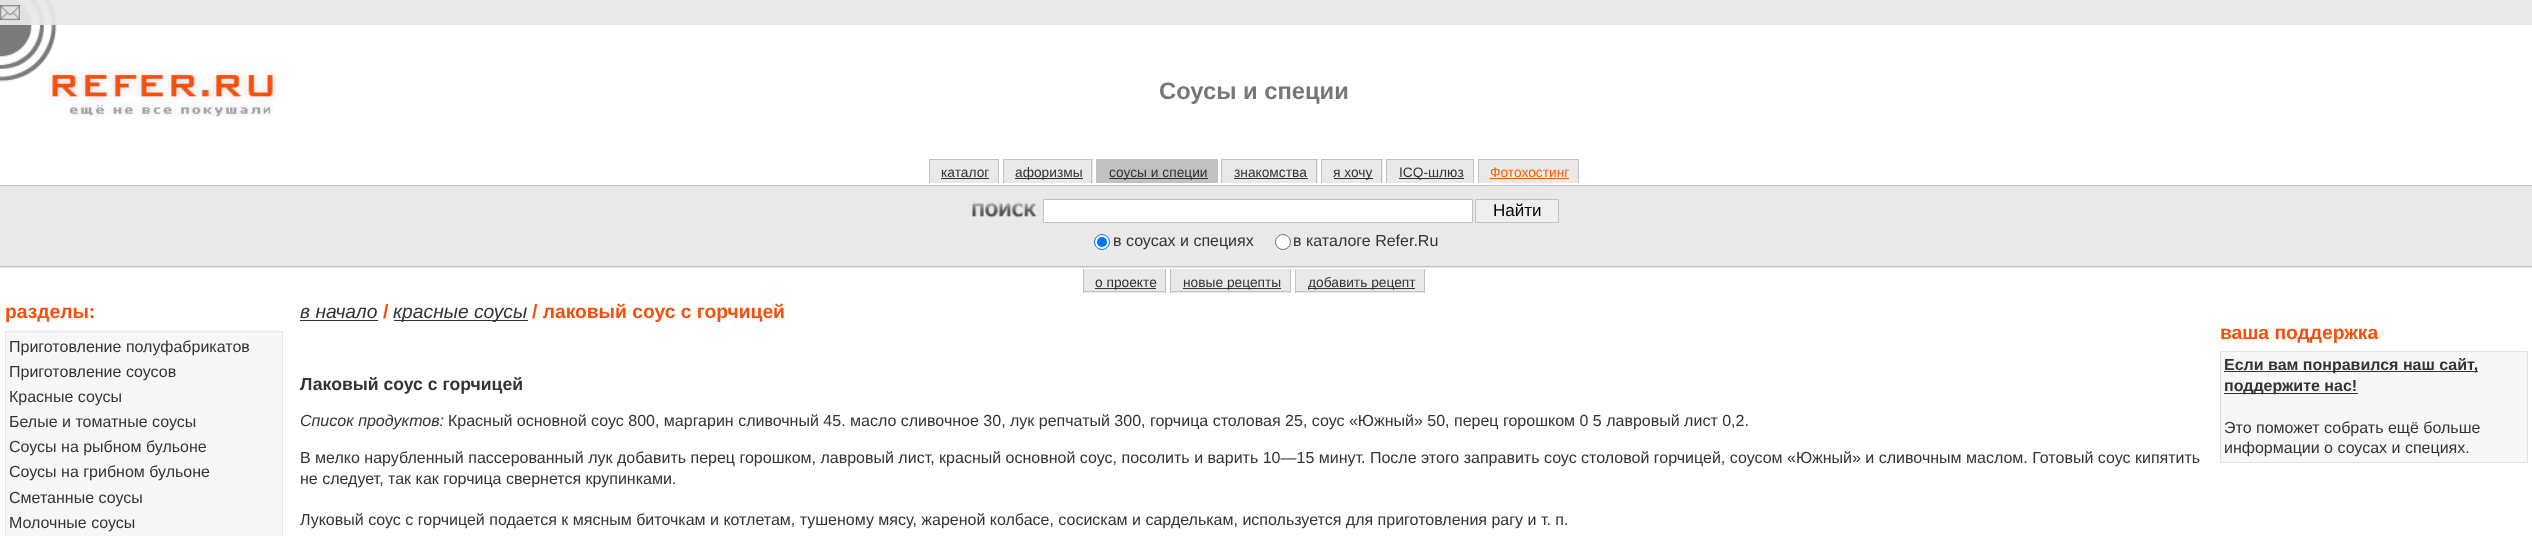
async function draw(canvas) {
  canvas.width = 2532;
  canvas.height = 536;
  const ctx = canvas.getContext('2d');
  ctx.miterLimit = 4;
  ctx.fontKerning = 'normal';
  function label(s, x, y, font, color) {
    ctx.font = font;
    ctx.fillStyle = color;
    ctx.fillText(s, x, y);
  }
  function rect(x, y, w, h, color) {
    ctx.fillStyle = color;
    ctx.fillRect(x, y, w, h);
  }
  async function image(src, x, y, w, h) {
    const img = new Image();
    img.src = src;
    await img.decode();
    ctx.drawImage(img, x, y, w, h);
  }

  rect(0, 0, 2532, 536, '#fff');
  rect(56, 0, 2476, 25, '#e9e9e9');
  await image('assets/img1.png', 0, 0, 56, 25);
  await image('assets/img2.png', 0, 5, 20, 15);
  await image('assets/img3.png', 0, 25, 57, 57);
  await image('assets/img4.png', 48, 70, 229, 47);
  label('Соусы и специи', 1159, 99, 'bold 23.75px Liberation Sans', '#777');
  rect(930, 160, 68, 23, '#e9e9e9');
  label('каталог', 941, 177, '13.75px Liberation Sans', '#333');
  rect(929, 159, 70, 1, '#c1c1c1');
  rect(998, 159, 1, 24, '#c1c1c1');
  rect(929, 159, 1, 24, '#c1c1c1');
  rect(941, 178, 48, 1, '#333');
  rect(1004, 160, 89, 23, '#e9e9e9');
  rect(1015, 178, 68, 1, '#333');
  label('афоризмы', 1015, 177, '13.75px Liberation Sans', '#333');
  rect(1003, 159, 90, 1, '#c1c1c1');
  rect(1091, 159, 1, 24, '#c1c1c1');
  rect(1003, 159, 1, 24, '#c1c1c1');
  rect(1096, 159, 122, 24, '#c1c1c1');
  rect(1109, 178, 99, 1, '#333');
  label('соусы и специи', 1109, 177, '13.75px Liberation Sans', '#333');
  rect(1222, 160, 96, 23, '#e9e9e9');
  label('знакомства', 1234, 177, '13.75px Liberation Sans', '#333');
  rect(1221, 159, 97, 1, '#c1c1c1');
  rect(1316, 159, 1, 24, '#c1c1c1');
  rect(1221, 159, 1, 24, '#c1c1c1');
  rect(1234, 178, 74, 1, '#333');
  rect(1322, 160, 61, 23, '#e9e9e9');
  rect(1334, 178, 39, 1, '#333');
  label('я хочу', 1333, 177, '13.75px Liberation Sans', '#333');
  rect(1321, 159, 62, 1, '#c1c1c1');
  rect(1381, 159, 1, 24, '#c1c1c1');
  rect(1321, 159, 1, 24, '#c1c1c1');
  rect(1387, 160, 86, 23, '#e9e9e9');
  rect(1399, 178, 65, 1, '#333');
  label('ICQ-шлюз', 1399, 177, '13.75px Liberation Sans', '#333');
  rect(1386, 159, 88, 1, '#c1c1c1');
  rect(1473, 159, 1, 24, '#c1c1c1');
  rect(1386, 159, 1, 24, '#c1c1c1');
  rect(1479, 160, 99, 23, '#e9e9e9');
  label('Фотохостинг', 1490, 177, '13.75px Liberation Sans', '#ff6000');
  rect(1478, 159, 101, 1, '#c1c1c1');
  rect(1578, 159, 1, 24, '#c1c1c1');
  rect(1478, 159, 1, 24, '#c1c1c1');
  rect(1490, 178, 79, 1, '#ff6000');
  rect(0, 186, 2532, 82, '#e9e9e9');
  rect(0, 185, 2532, 1, '#c1c1c1');
  rect(0, 266, 2532, 1, '#c1c1c1');
  await image('assets/img5.png', 972, 202, 65, 16);
  ctx.fillStyle = '#fff';
  ctx.beginPath();
  ctx.rect(1043.5, 199.5, 429, 23);
  ctx.fill();
  ctx.strokeStyle = '#c1c1c1';
  ctx.stroke();
  ctx.fillStyle = '#efefef';
  ctx.beginPath();
  ctx.rect(1475.5, 199.5, 83, 23);
  ctx.fill();
  ctx.stroke();
  label('Найти', 1493, 216, '17px Liberation Sans', '#000');
  ctx.fillStyle = '#fff';
  ctx.beginPath();
  ctx.arc(1102, 242, 7.5, 0, 2 * Math.PI);
  ctx.fill();
  ctx.strokeStyle = '#0075ff';
  ctx.stroke();
  ctx.fillStyle = '#0075ff';
  ctx.beginPath();
  ctx.arc(1102, 242, 5, 0, 2 * Math.PI);
  ctx.fill();
  label('в соусах и специях', 1113, 246, '16px Liberation Sans', '#333');
  ctx.fillStyle = '#fff';
  ctx.beginPath();
  ctx.arc(1283, 242, 7.5, 0, 2 * Math.PI);
  ctx.fill();
  ctx.strokeStyle = '#767676';
  ctx.stroke();
  label('в каталоге Refer.Ru', 1293, 246, '16px Liberation Sans', '#333');
  rect(1084, 269, 81, 24, '#e9e9e9');
  rect(1095, 288, 61, 1, '#333');
  label('о проекте', 1095, 287, '13.75px Liberation Sans', '#333');
  rect(1165, 269, 1, 24, '#c1c1c1');
  rect(1083, 291, 83, 1, '#c1c1c1');
  rect(1083, 269, 1, 24, '#c1c1c1');
  rect(1171, 269, 119, 24, '#e9e9e9');
  rect(1183, 288, 98, 1, '#333');
  label('новые рецепты', 1183, 287, '13.75px Liberation Sans', '#333');
  rect(1290, 269, 1, 24, '#c1c1c1');
  rect(1170, 291, 121, 1, '#c1c1c1');
  rect(1170, 269, 1, 24, '#c1c1c1');
  rect(1296, 269, 128, 24, '#e9e9e9');
  rect(1308, 288, 107, 1, '#333');
  label('добавить рецепт', 1308, 287, '13.75px Liberation Sans', '#333');
  rect(1424, 269, 1, 24, '#c1c1c1');
  rect(1295, 291, 130, 1, '#c1c1c1');
  rect(1295, 269, 1, 24, '#c1c1c1');
  label('разделы:', 5, 318, 'bold 19.25px Liberation Sans', '#f84e0c');
  ctx.fillStyle = '#f7f7f7';
  ctx.beginPath();
  ctx.rect(5.5, 331.5, 277, 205);
  ctx.fill();
  ctx.strokeStyle = '#e3e3e3';
  ctx.stroke();
  label('Приготовление полуфабрикатов', 9, 352, '16px Liberation Sans', '#333');
  label('Приготовление соусов', 9, 377, '16px Liberation Sans', '#333');
  label('Красные соусы', 9, 402, '16px Liberation Sans', '#333');
  label('Белые и томатные соусы', 9, 427, '16px Liberation Sans', '#333');
  label('Соусы на рыбном бульоне', 9, 452, '16px Liberation Sans', '#333');
  label('Соусы на грибном бульоне', 9, 477, '16px Liberation Sans', '#333');
  label('Сметанные соусы', 9, 503, '16px Liberation Sans', '#333');
  label('Молочные соусы', 9, 528, '16px Liberation Sans', '#333');
  label('в начало', 300, 318, 'italic 19.25px Liberation Sans', '#333');
  rect(300, 320, 78, 1, '#333');
  label('/', 383, 318, 'bold 19.25px Liberation Sans', '#f84e0c');
  rect(394, 320, 134, 1, '#333');
  label('красные соусы', 393, 318, 'italic 19.25px Liberation Sans', '#333');
  label('/ лаковый соус с горчицей', 532, 318, 'bold 19.25px Liberation Sans', '#f84e0c');
  label('Лаковый соус с горчицей', 300, 390, 'bold 17.6px Liberation Sans', '#333');
  label('Список продуктов:', 300, 426, 'italic 16px Liberation Sans', '#333');
  label('Красный основной соус 800, маргарин сливочный 45. масло сливочное 30, лук репчатый 300, горчица столовая 25, соус «Южный» 50, перец горошком 0 5 лавровый лист 0,2.', 448, 426, '16px Liberation Sans', '#333');
  label('В мелко нарубленный пассерованный лук добавить перец горошком, лавровый лист, красный основной соус, посолить и варить 10—15 минут. После этого заправить соус столовой горчицей, соусом «Южный» и сливочным маслом. Готовый соус кипятить', 300, 463, '16px Liberation Sans', '#333');
  label('не следует, так как горчица свернется крупинками.', 300, 484, '16px Liberation Sans', '#333');
  label('Луковый соус с горчицей подается к мясным биточкам и котлетам, тушеному мясу, жареной колбасе, сосискам и сарделькам, используется для приготовления рагу и т. п.', 300, 525, '16px Liberation Sans', '#333');
  label('ваша поддержка', 2220, 339, 'bold 19.25px Liberation Sans', '#f84e0c');
  ctx.fillStyle = '#f7f7f7';
  ctx.beginPath();
  ctx.rect(2220.5, 351.5, 307, 111);
  ctx.fill();
  ctx.stroke();
  rect(2224, 371, 254, 1, '#333');
  label('Если вам понравился наш сайт,', 2224, 370, 'bold 16px Liberation Sans', '#333');
  rect(2224, 393, 134, 1, '#333');
  label('поддержите нас!', 2224, 391, 'bold 16px Liberation Sans', '#333');
  label('Это поможет собрать ещё больше', 2224, 433, '16px Liberation Sans', '#333');
  label('информации о соусах и специях.', 2224, 453, '16px Liberation Sans', '#333');
}

draw(document.querySelector('canvas'));
